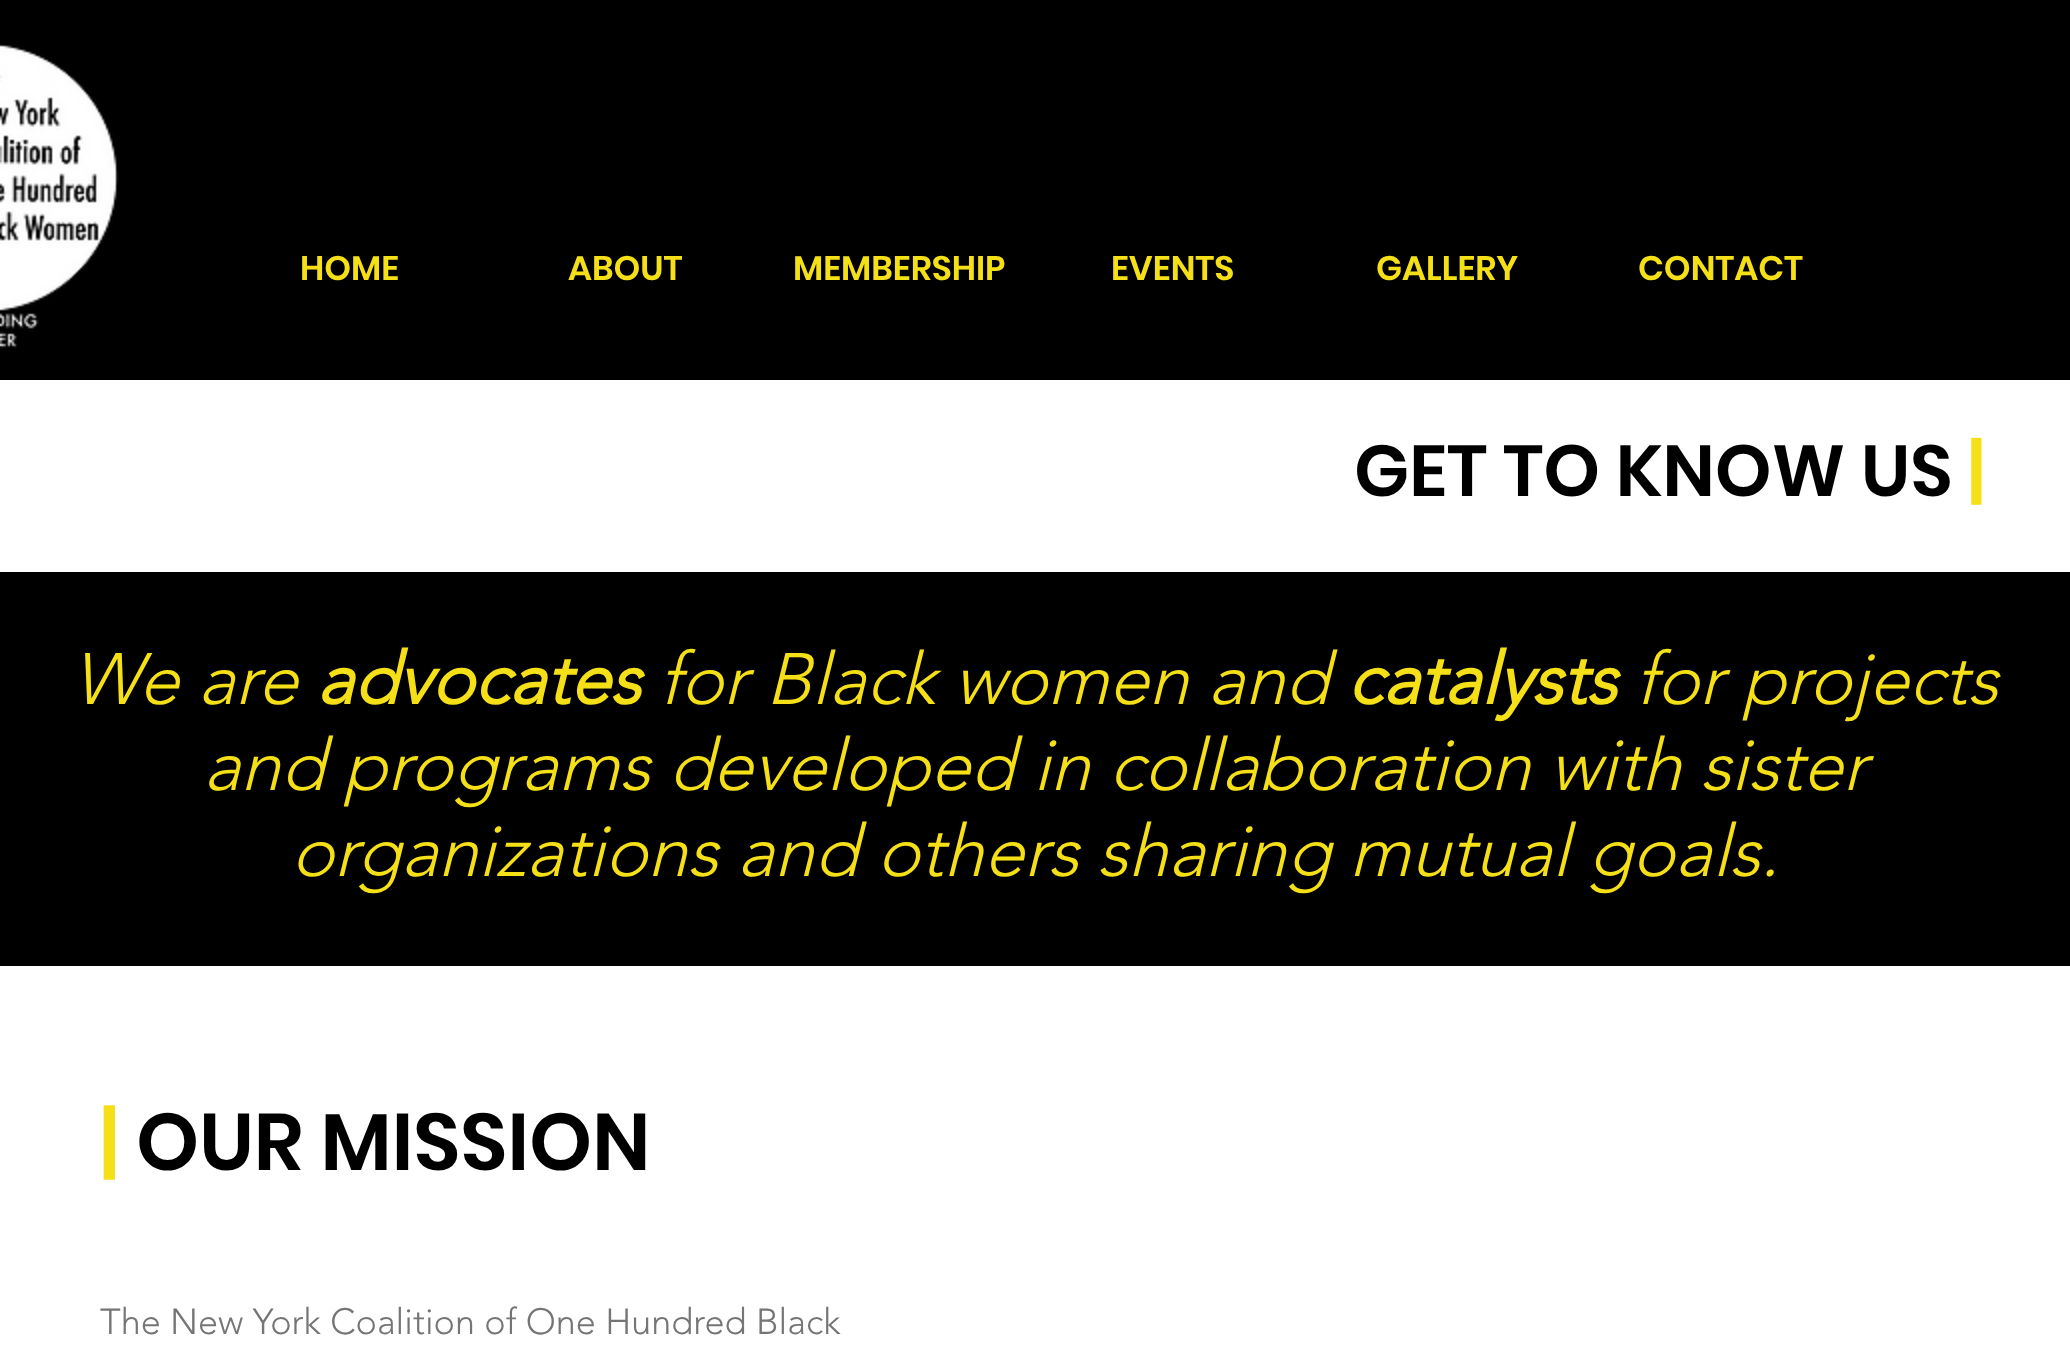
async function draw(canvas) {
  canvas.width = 2070;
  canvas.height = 1368;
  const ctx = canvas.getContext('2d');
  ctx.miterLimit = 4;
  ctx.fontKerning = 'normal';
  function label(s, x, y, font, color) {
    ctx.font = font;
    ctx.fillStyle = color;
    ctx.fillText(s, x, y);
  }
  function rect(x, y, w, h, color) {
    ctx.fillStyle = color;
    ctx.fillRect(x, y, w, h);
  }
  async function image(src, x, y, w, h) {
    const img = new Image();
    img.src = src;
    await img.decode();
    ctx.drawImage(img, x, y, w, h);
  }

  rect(0, 0, 2070, 1368, '#fff');
  rect(0, 0, 2070, 380, '#000');
  await image('assets/img1.png', 0, 44, 119, 305);
  label('HOME', 300, 280, '600 34px Poppins', '#f5df16');
  label('ABOUT', 568, 280, '600 34px Poppins', '#f5df16');
  label('MEMBERSHIP', 793, 280, '600 34px Poppins', '#f5df16');
  label('EVENTS', 1111, 280, '600 34px Poppins', '#f5df16');
  label('GALLERY', 1376, 280, '600 34px Poppins', '#f5df16');
  label('CONTACT', 1638, 280, '600 34px Poppins', '#f5df16');
  label('GET TO KNOW US', 1354, 496, '600 72px Poppins', '#000');
  label('|', 1968, 496, '600 72px Poppins', '#f5df16');
  rect(0, 572, 2070, 394, '#000');
  label('We are', 72, 704, 'italic 300 72px "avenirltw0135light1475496"', '#f5df16');
  label('advocates', 316, 704, 'italic bold 72px "avenirltw0135light1475496"', '#f5df16');
  label('for Black women and', 659, 704, 'italic 300 72px "avenirltw0135light1475496"', '#f5df16');
  label('catalysts', 1347, 704, 'italic bold 72px "avenirltw0135light1475496"', '#f5df16');
  label('for projects', 1635, 704, 'italic 300 72px "avenirltw0135light1475496"', '#f5df16');
  label('and programs developed in collaboration with sister', 203, 790, 'italic 300 72px "avenirltw0135light1475496"', '#f5df16');
  label('organizations and others sharing mutual goals.', 291, 876, 'italic 300 72px "avenirltw0135light1475496"', '#f5df16');
  label('|', 100, 1170, '600 80px Poppins', '#f5df16');
  label('OUR MISSION', 136, 1170, '600 80px Poppins', '#000');
  label('The New York Coalition of One Hundred Black', 100, 1334, '300 36px "avenirltw0135light1475496"', '#757575');
}

draw(document.querySelector('canvas'));
